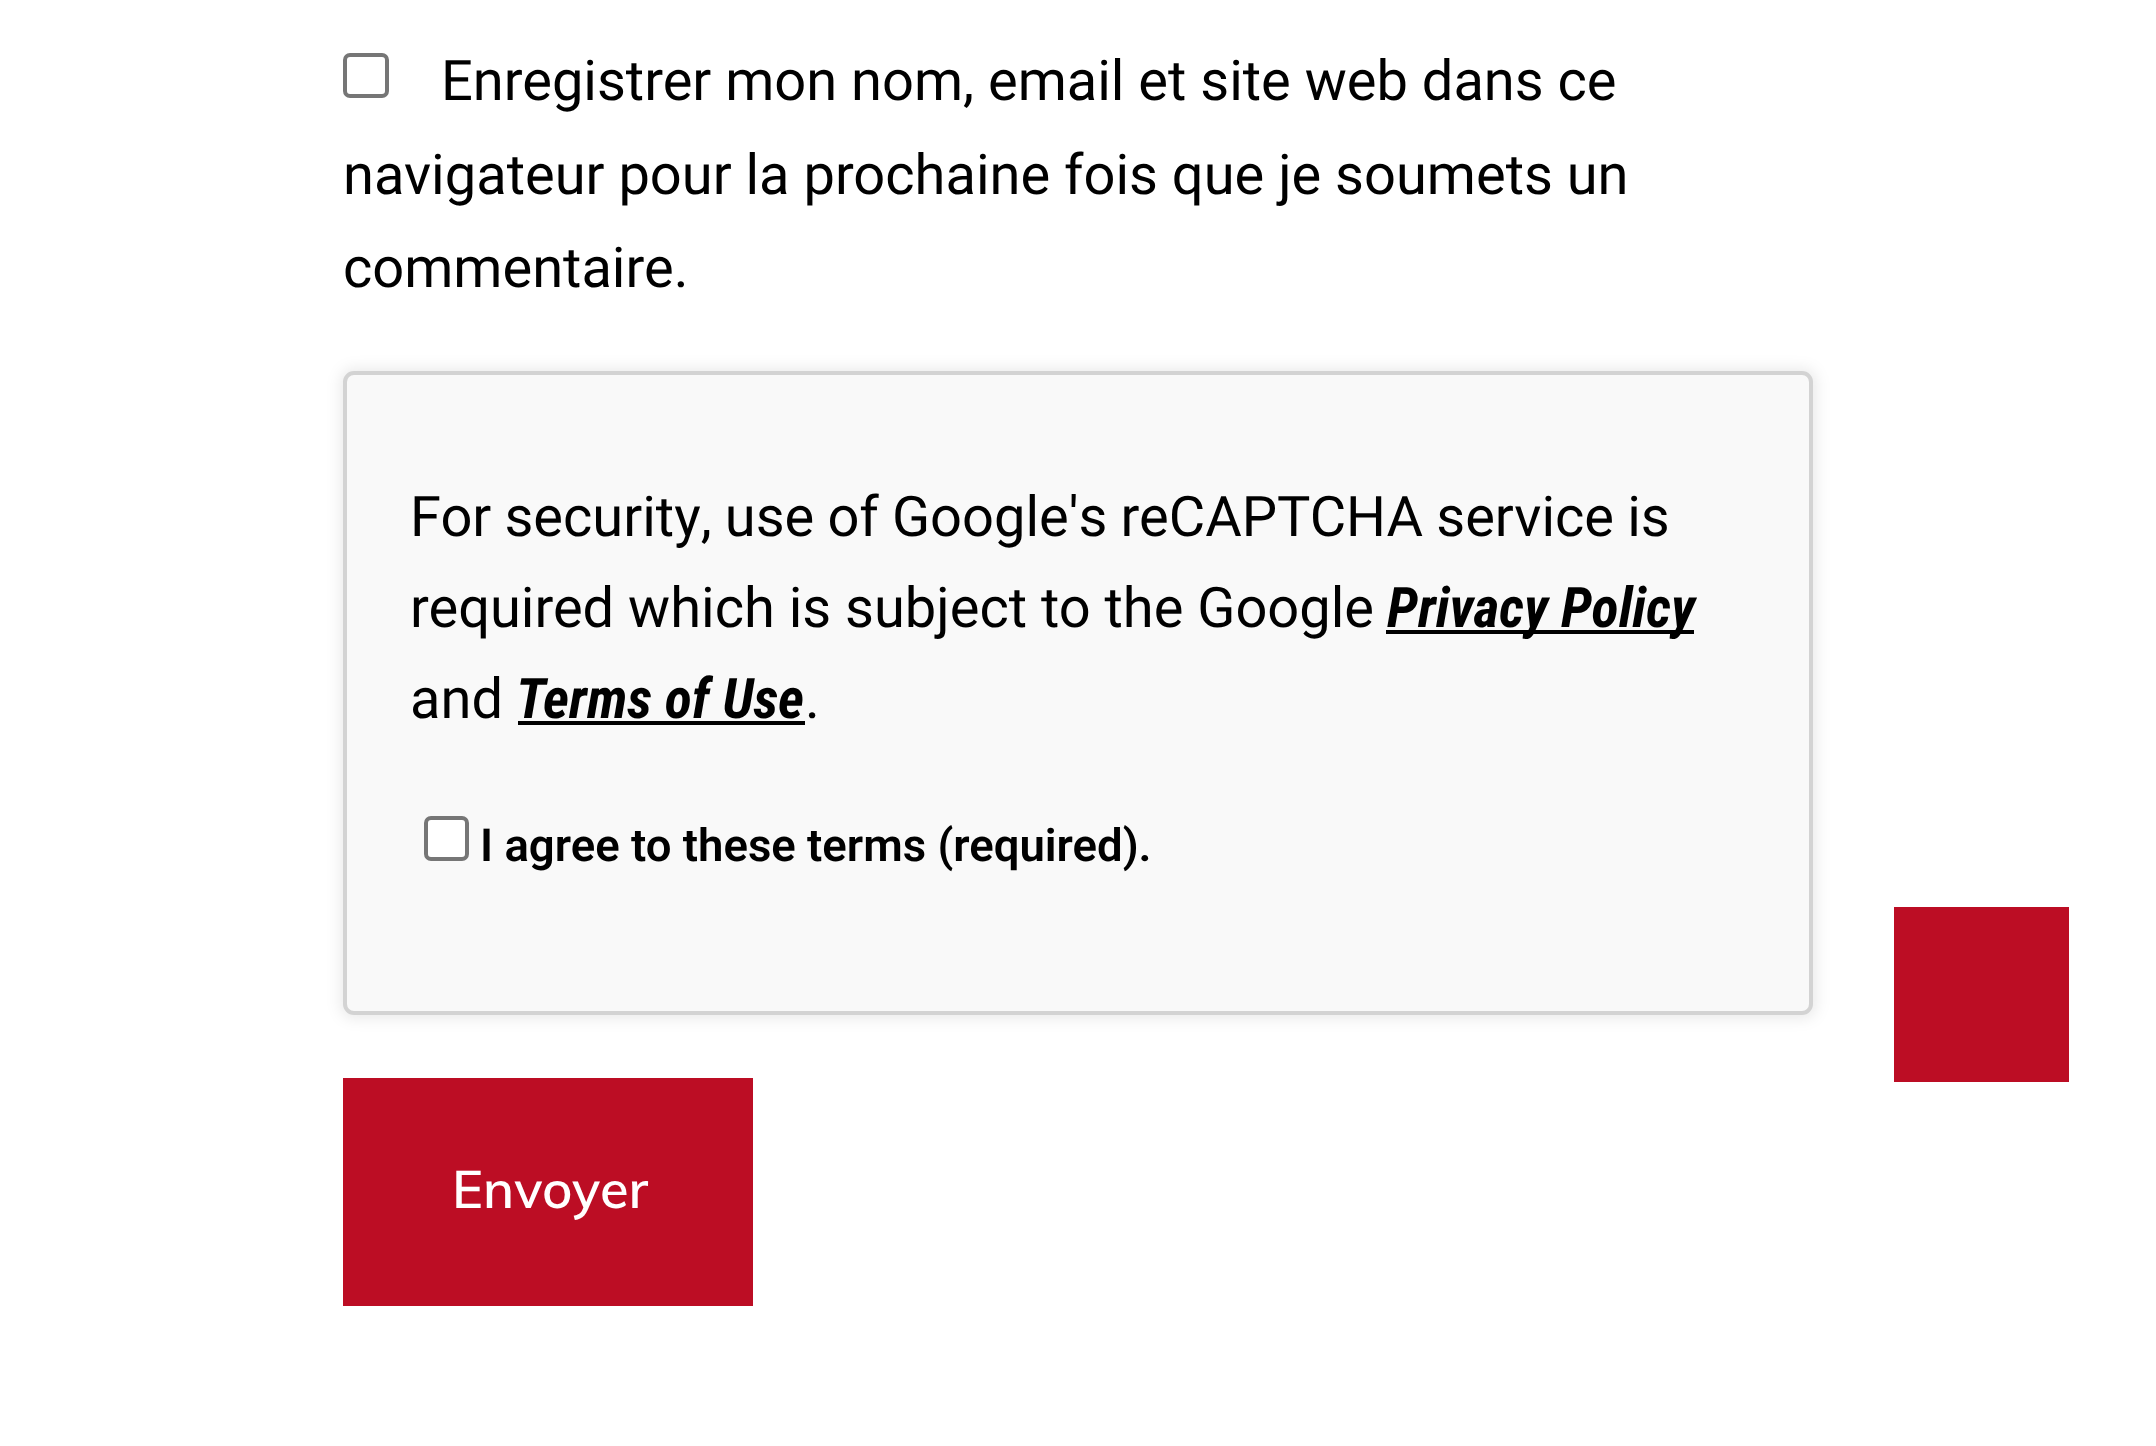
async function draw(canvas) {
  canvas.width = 2156;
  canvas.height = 1446;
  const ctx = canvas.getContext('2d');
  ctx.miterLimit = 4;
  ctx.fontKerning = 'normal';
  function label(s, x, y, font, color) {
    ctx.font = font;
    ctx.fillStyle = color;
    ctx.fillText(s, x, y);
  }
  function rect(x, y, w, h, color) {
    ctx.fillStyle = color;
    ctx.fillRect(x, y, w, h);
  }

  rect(0, 0, 2156, 1446, '#fff');
  ctx.beginPath();
  ctx.roundRect(345, 55, 42, 41, 5);
  ctx.strokeStyle = '#767676';
  ctx.lineWidth = 4;
  ctx.stroke();
  label('Enregistrer mon nom, email et site web dans ce', 441, 100, '56px Roboto', '#000');
  label('navigateur pour la prochaine fois que je soumets un', 343, 194, '56px Roboto', '#000');
  label('commentaire.', 343, 287, '56px Roboto', '#000');
  ctx.fillStyle = '#00000014';
  ctx.filter = 'blur(7px)';
  ctx.beginPath();
  ctx.roundRect(340, 368, 1477, 651, 14);
  ctx.fill();
  ctx.filter = 'none';
  ctx.fillStyle = '#f9f9f9';
  ctx.beginPath();
  ctx.roundRect(345, 373, 1466, 640, 9);
  ctx.fill();
  ctx.strokeStyle = '#d3d3d3';
  ctx.stroke();
  ctx.wordSpacing = '-0.75px';
  label('For security, use of Google\'s reCAPTCHA service is', 410, 536, '56px Roboto', '#000');
  ctx.wordSpacing = '0px';
  label('required which is subject to the Google', 410, 627, '56px Roboto', '#000');
  rect(1386, 630, 308, 4, '#000');
  label('Privacy Policy', 1387, 627, 'italic bold 56px Roboto Condensed', '#000');
  label('and', 410, 718, '56px Roboto', '#000');
  label('Terms of Use', 516, 718, 'italic bold 56px Roboto Condensed', '#000');
  rect(518, 721, 287, 4, '#000');
  label('.', 805, 718, '56px Roboto', '#000');
  ctx.fillStyle = '#fff';
  ctx.beginPath();
  ctx.roundRect(426, 818, 41, 41, 5);
  ctx.fill();
  ctx.strokeStyle = '#767676';
  ctx.stroke();
  label('I agree to these terms (required).', 480, 861, '600 45.5px Roboto', '#000');
  rect(343, 1078, 410, 228, '#bc0d24');
  label('Envoyer', 452, 1208, '600 52.5px Muli', '#fff');
  rect(1894, 907, 175, 175, '#bc0d24');
}

draw(document.querySelector('canvas'));
